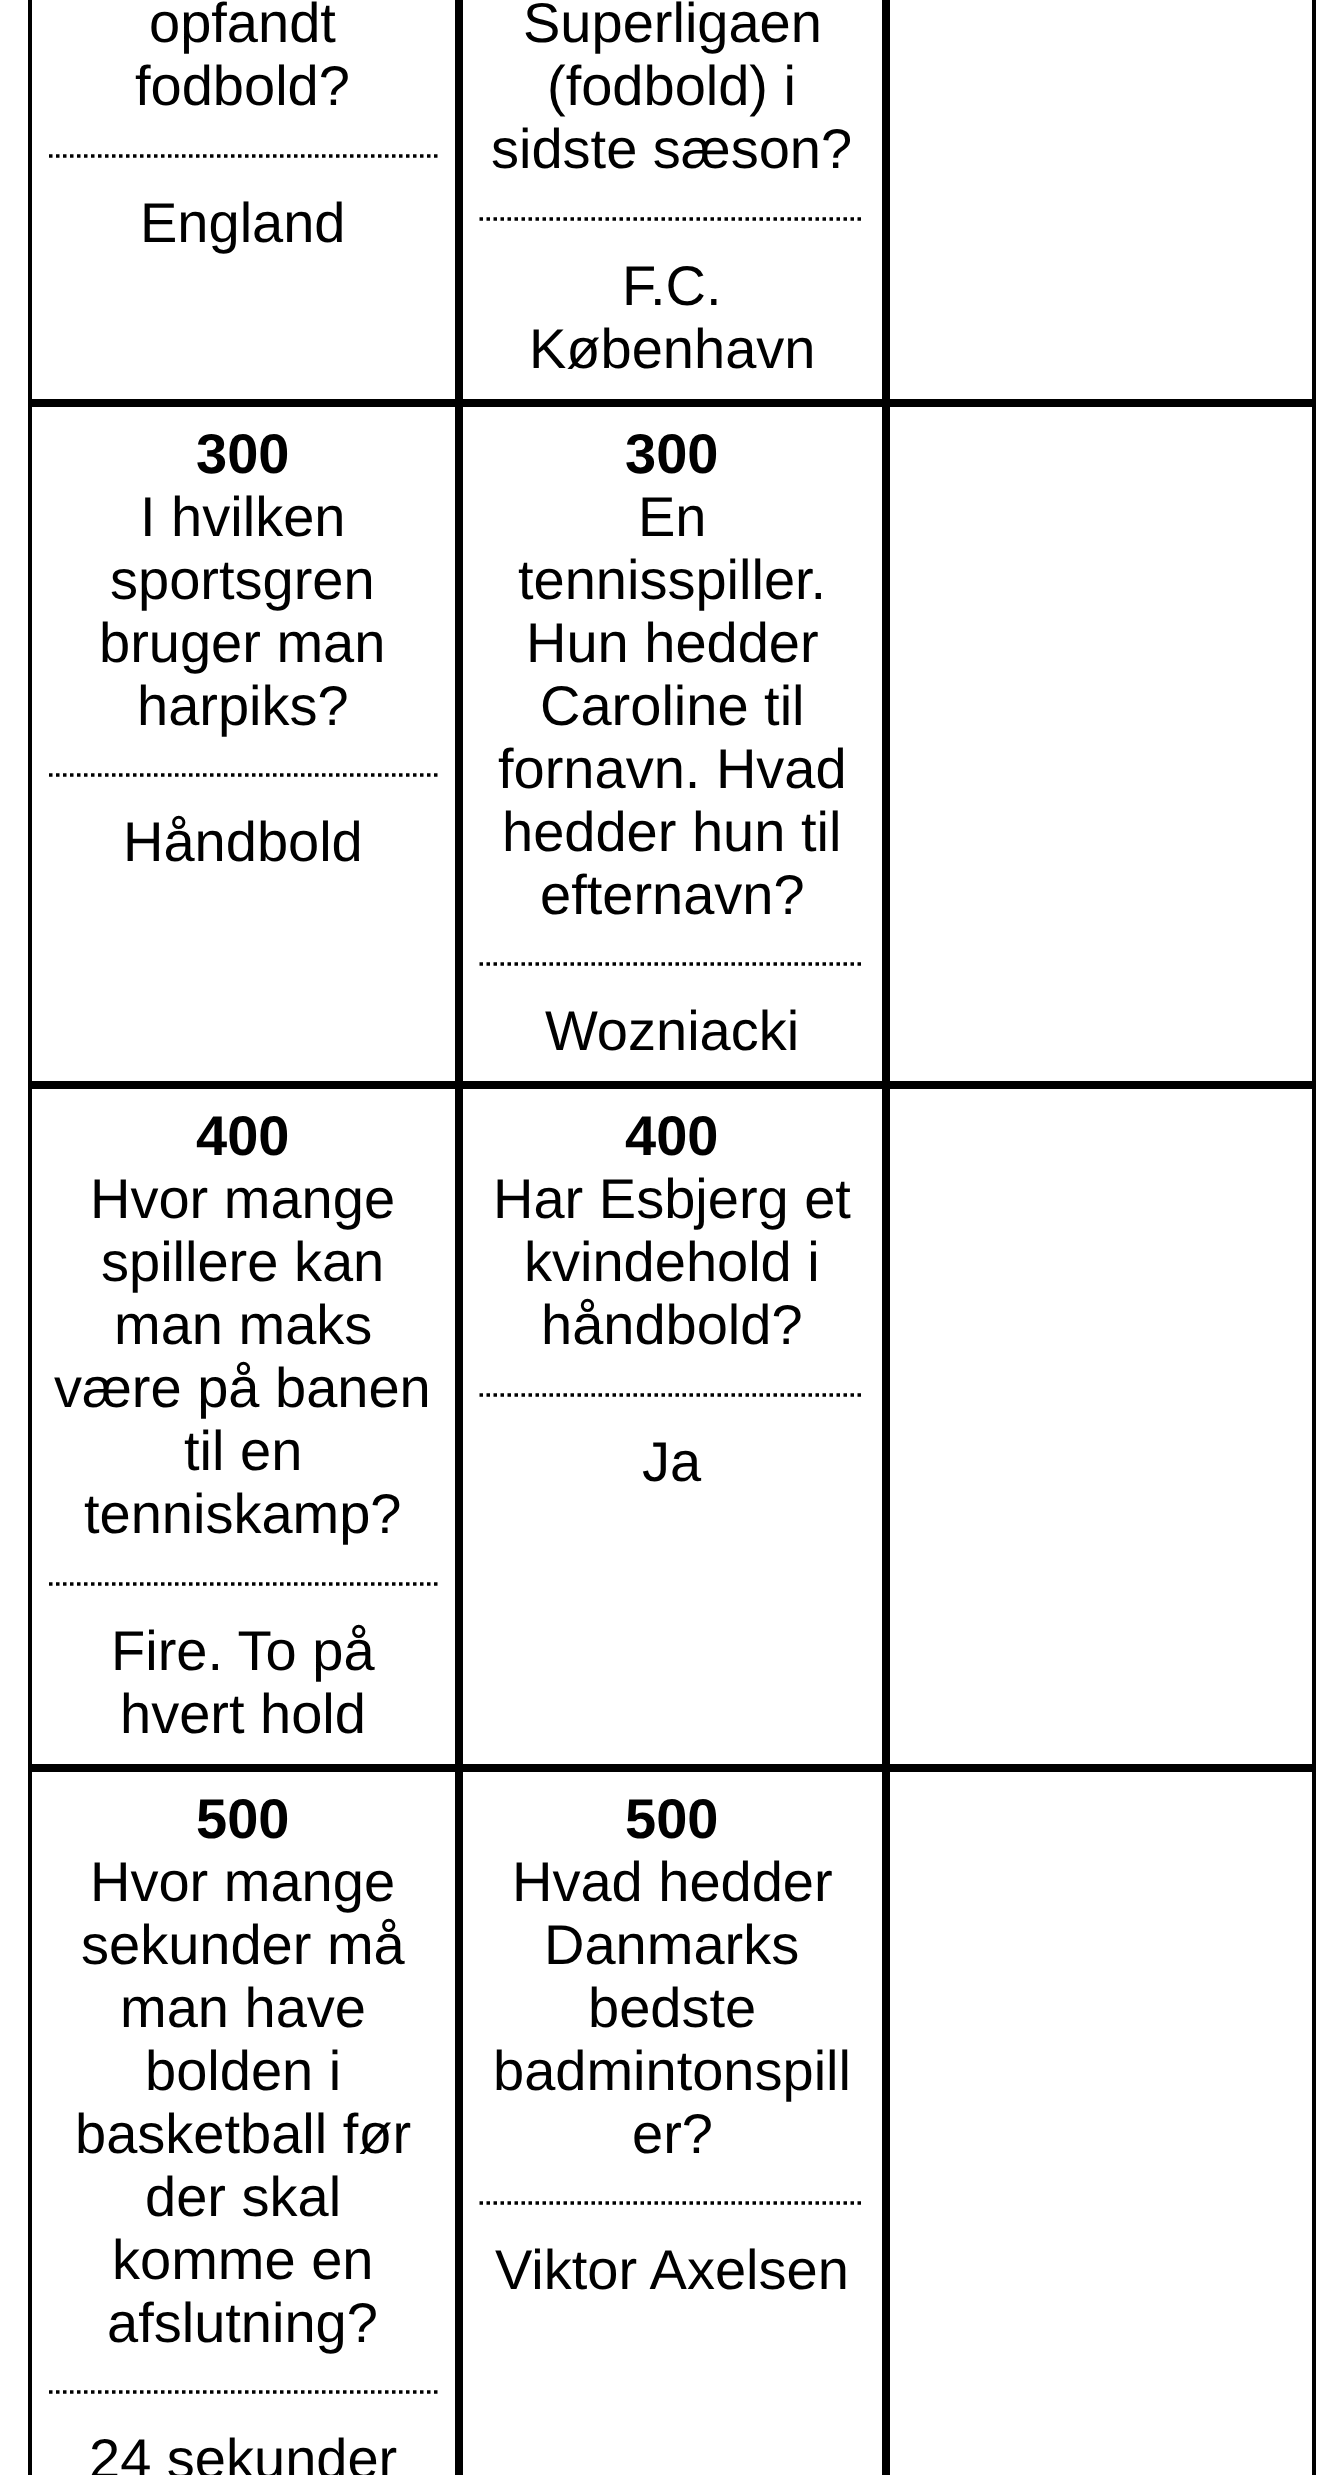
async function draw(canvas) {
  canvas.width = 1343;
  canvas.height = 2475;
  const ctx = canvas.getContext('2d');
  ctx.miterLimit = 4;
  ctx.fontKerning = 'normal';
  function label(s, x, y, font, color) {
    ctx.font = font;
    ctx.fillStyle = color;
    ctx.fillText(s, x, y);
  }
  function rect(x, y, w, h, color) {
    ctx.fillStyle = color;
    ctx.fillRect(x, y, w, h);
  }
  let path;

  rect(0, 0, 1343, 2475, '#fff');
  ctx.strokeStyle = '#000';
  ctx.lineWidth = 4;
  ctx.strokeRect(30, -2, 427, 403);
  label('opfandt', 149, 42, '56px Liberation Sans', '#000');
  label('fodbold?', 135, 105, '56px Liberation Sans', '#000');
  path = new Path2D('M49 156H437.5');
  ctx.lineWidth = 3.5;
  ctx.setLineDash([3.5, 3.5]);
  ctx.stroke(path);
  label('England', 140, 242, '56px Liberation Sans', '#000');
  ctx.lineWidth = 4;
  ctx.setLineDash([]);
  ctx.strokeRect(461, -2, 423, 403);
  label('Superligaen', 523, 42, '56px Liberation Sans', '#000');
  label('(fodbold) i', 547, 105, '56px Liberation Sans', '#000');
  label('sidste sæson?', 491, 168, '56px Liberation Sans', '#000');
  path = new Path2D('M479.5 219H864.5');
  ctx.lineWidth = 3.5;
  ctx.setLineDash([3.5, 3.5]);
  ctx.stroke(path);
  label('F.C.', 622, 305, '56px Liberation Sans', '#000');
  label('København', 529, 368, '56px Liberation Sans', '#000');
  ctx.lineWidth = 4;
  ctx.setLineDash([]);
  ctx.strokeRect(888, -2, 426, 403);
  ctx.strokeRect(30, 405, 427, 678);
  label('300', 196, 473, 'bold 56px Liberation Sans', '#000');
  label('I hvilken', 140, 536, '56px Liberation Sans', '#000');
  label('sportsgren', 110, 599, '56px Liberation Sans', '#000');
  label('bruger man', 99, 662, '56px Liberation Sans', '#000');
  label('harpiks?', 137, 725, '56px Liberation Sans', '#000');
  path = new Path2D('M49 775H437.5');
  ctx.lineWidth = 3.5;
  ctx.setLineDash([3.5, 3.5]);
  ctx.stroke(path);
  label('Håndbold', 123, 861, '56px Liberation Sans', '#000');
  ctx.lineWidth = 4;
  ctx.setLineDash([]);
  ctx.strokeRect(461, 405, 423, 678);
  label('300', 625, 473, 'bold 56px Liberation Sans', '#000');
  label('En', 638, 536, '56px Liberation Sans', '#000');
  label('tennisspiller.', 518, 599, '56px Liberation Sans', '#000');
  label('Hun hedder', 526, 662, '56px Liberation Sans', '#000');
  label('Caroline til', 540, 725, '56px Liberation Sans', '#000');
  label('fornavn. Hvad', 498, 788, '56px Liberation Sans', '#000');
  label('hedder hun til', 502, 851, '56px Liberation Sans', '#000');
  label('efternavn?', 540, 914, '56px Liberation Sans', '#000');
  path = new Path2D('M479.5 964H864.5');
  ctx.lineWidth = 3.5;
  ctx.setLineDash([3.5, 3.5]);
  ctx.stroke(path);
  label('Wozniacki', 545, 1050, '56px Liberation Sans', '#000');
  ctx.lineWidth = 4;
  ctx.setLineDash([]);
  ctx.strokeRect(888, 405, 426, 678);
  ctx.strokeRect(30, 1087, 427, 679);
  label('400', 196, 1155, 'bold 56px Liberation Sans', '#000');
  label('Hvor mange', 90, 1218, '56px Liberation Sans', '#000');
  label('spillere kan', 101, 1281, '56px Liberation Sans', '#000');
  label('man maks', 114, 1344, '56px Liberation Sans', '#000');
  label('være på banen', 54, 1407, '56px Liberation Sans', '#000');
  label('til en', 184, 1470, '56px Liberation Sans', '#000');
  label('tenniskamp?', 84, 1533, '56px Liberation Sans', '#000');
  path = new Path2D('M49 1584H437.5');
  ctx.lineWidth = 3.5;
  ctx.setLineDash([3.5, 3.5]);
  ctx.stroke(path);
  label('Fire. To på', 111, 1670, '56px Liberation Sans', '#000');
  label('hvert hold', 120, 1733, '56px Liberation Sans', '#000');
  ctx.lineWidth = 4;
  ctx.setLineDash([]);
  ctx.strokeRect(461, 1087, 423, 679);
  label('400', 625, 1155, 'bold 56px Liberation Sans', '#000');
  label('Har Esbjerg et', 493, 1218, '56px Liberation Sans', '#000');
  label('kvindehold i', 524, 1281, '56px Liberation Sans', '#000');
  label('håndbold?', 541, 1344, '56px Liberation Sans', '#000');
  path = new Path2D('M479.5 1395H864.5');
  ctx.lineWidth = 3.5;
  ctx.setLineDash([3.5, 3.5]);
  ctx.stroke(path);
  label('Ja', 642, 1481, '56px Liberation Sans', '#000');
  ctx.lineWidth = 4;
  ctx.setLineDash([]);
  ctx.strokeRect(888, 1087, 426, 679);
  ctx.strokeRect(30, 1770, 427, 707);
  label('500', 196, 1838, 'bold 56px Liberation Sans', '#000');
  label('Hvor mange', 90, 1901, '56px Liberation Sans', '#000');
  label('sekunder må', 81, 1964, '56px Liberation Sans', '#000');
  label('man have', 120, 2027, '56px Liberation Sans', '#000');
  label('bolden i', 145, 2090, '56px Liberation Sans', '#000');
  label('basketball før', 75, 2153, '56px Liberation Sans', '#000');
  label('der skal', 145, 2216, '56px Liberation Sans', '#000');
  label('komme en', 112, 2279, '56px Liberation Sans', '#000');
  label('afslutning?', 107, 2342, '56px Liberation Sans', '#000');
  path = new Path2D('M49 2392H437.5');
  ctx.lineWidth = 3.5;
  ctx.setLineDash([3.5, 3.5]);
  ctx.stroke(path);
  label('24 sekunder', 89, 2478, '56px Liberation Sans', '#000');
  ctx.lineWidth = 4;
  ctx.setLineDash([]);
  ctx.strokeRect(461, 1770, 423, 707);
  label('500', 625, 1838, 'bold 56px Liberation Sans', '#000');
  label('Hvad hedder', 512, 1901, '56px Liberation Sans', '#000');
  label('Danmarks', 544, 1964, '56px Liberation Sans', '#000');
  label('bedste', 588, 2027, '56px Liberation Sans', '#000');
  label('badmintonspill', 493, 2090, '56px Liberation Sans', '#000');
  label('er?', 632, 2153, '56px Liberation Sans', '#000');
  path = new Path2D('M479.5 2203H864.5');
  ctx.lineWidth = 3.5;
  ctx.setLineDash([3.5, 3.5]);
  ctx.stroke(path);
  label('Viktor Axelsen', 495, 2289, '56px Liberation Sans', '#000');
  ctx.lineWidth = 4;
  ctx.setLineDash([]);
  ctx.strokeRect(888, 1770, 426, 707);
}

draw(document.querySelector('canvas'));
